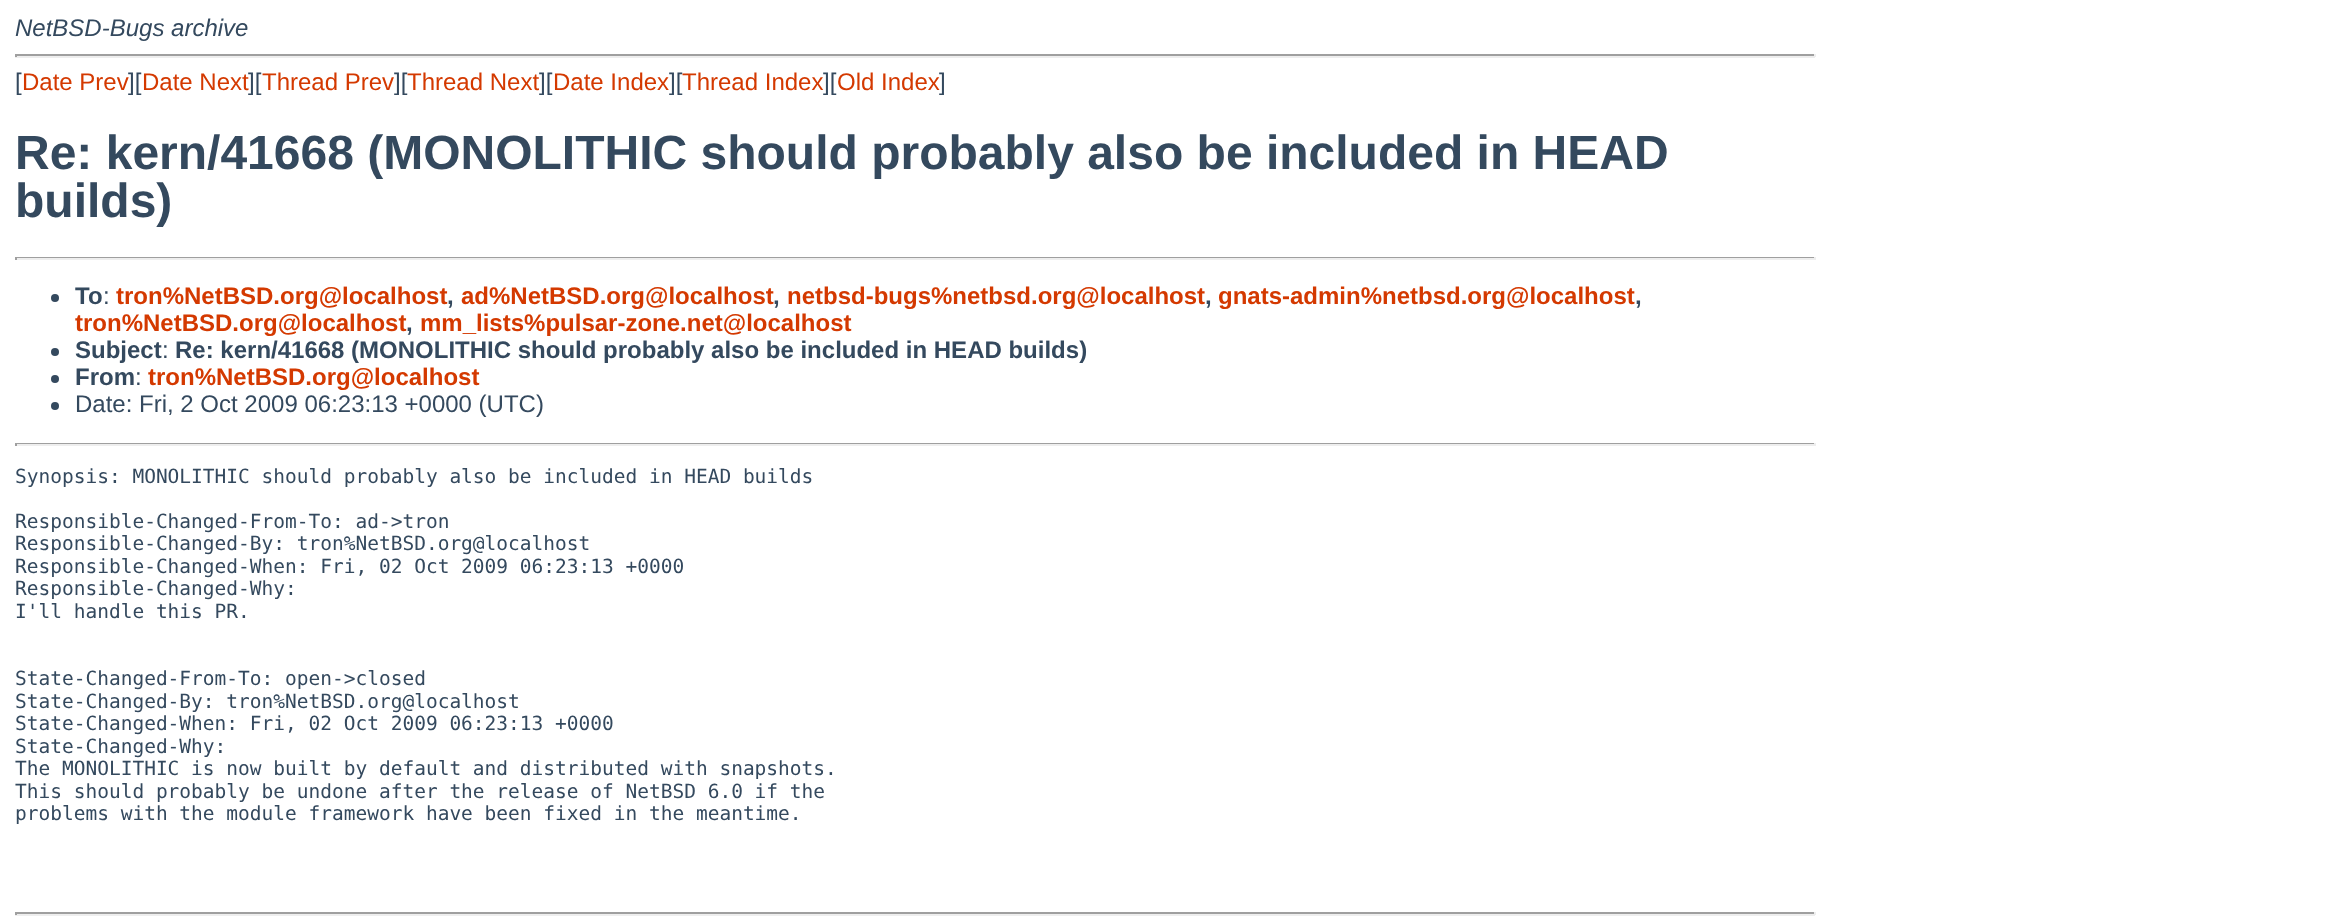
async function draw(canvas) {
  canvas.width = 2329;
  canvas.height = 919;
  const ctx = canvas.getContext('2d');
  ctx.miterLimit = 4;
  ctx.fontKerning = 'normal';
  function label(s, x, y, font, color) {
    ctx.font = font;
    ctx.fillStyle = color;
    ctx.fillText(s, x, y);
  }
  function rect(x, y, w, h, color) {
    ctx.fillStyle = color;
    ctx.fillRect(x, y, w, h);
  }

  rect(0, 0, 2329, 919, '#fff');
  label('NetBSD-Bugs archive', 15, 36, 'italic 24px Liberation Sans', '#34495e');
  rect(15, 54, 1800, 2, '#9f9f9f');
  rect(1814, 54, 2, 3, '#eee');
  rect(15, 56, 1800, 2, '#eee');
  rect(15, 54, 2, 3, '#9f9f9f');
  label('[', 15, 90, '24px Liberation Sans', '#34495e');
  label('Date Prev', 22, 90, '24px Liberation Sans', '#d43900');
  label('][', 128, 90, '24px Liberation Sans', '#34495e');
  label('Date Next', 142, 90, '24px Liberation Sans', '#d43900');
  label('][', 248, 90, '24px Liberation Sans', '#34495e');
  label('Thread Prev', 262, 90, '24px Liberation Sans', '#d43900');
  label('][', 394, 90, '24px Liberation Sans', '#34495e');
  label('Thread Next', 407, 90, '24px Liberation Sans', '#d43900');
  label('][', 539, 90, '24px Liberation Sans', '#34495e');
  label('Date Index', 553, 90, '24px Liberation Sans', '#d43900');
  label('][', 669, 90, '24px Liberation Sans', '#34495e');
  label('Thread Index', 682, 90, '24px Liberation Sans', '#d43900');
  label('][', 823, 90, '24px Liberation Sans', '#34495e');
  label('Old Index', 837, 90, '24px Liberation Sans', '#d43900');
  label(']', 939, 90, '24px Liberation Sans', '#34495e');
  label('Re: kern/41668 (MONOLITHIC should probably also be included in HEAD', 15, 169, 'bold 48px Liberation Sans', '#34495e');
  label('builds)', 15, 217, 'bold 48px Liberation Sans', '#34495e');
  rect(15, 257, 1800, 1, '#9f9f9f');
  rect(1814, 257, 2, 3, '#eee');
  rect(15, 258, 1800, 2, '#eee');
  rect(15, 257, 2, 3, '#9f9f9f');
  ctx.fillStyle = '#34495e';
  ctx.beginPath();
  ctx.arc(55, 298, 4, 0, 2 * Math.PI);
  ctx.fill();
  label('To', 75, 304, 'bold 24px Liberation Sans', '#34495e');
  label(':', 103, 304, '24px Liberation Sans', '#34495e');
  label('tron%NetBSD.org@localhost', 116, 304, 'bold 24px Liberation Sans', '#d43900');
  label('ad%NetBSD.org@localhost', 461, 304, 'bold 24px Liberation Sans', '#d43900');
  label('netbsd-bugs%netbsd.org@localhost', 787, 304, 'bold 24px Liberation Sans', '#d43900');
  label('gnats-admin%netbsd.org@localhost', 1218, 304, 'bold 24px Liberation Sans', '#d43900');
  label(',', 447, 304, 'bold 24px Liberation Sans', '#34495e');
  label(',', 773, 304, 'bold 24px Liberation Sans', '#34495e');
  label(',', 1205, 304, 'bold 24px Liberation Sans', '#34495e');
  label(',', 1635, 304, 'bold 24px Liberation Sans', '#34495e');
  label('tron%NetBSD.org@localhost', 75, 331, 'bold 24px Liberation Sans', '#d43900');
  label(',', 406, 331, 'bold 24px Liberation Sans', '#34495e');
  label('mm_lists%pulsar-zone.net@localhost', 420, 331, 'bold 24px Liberation Sans', '#d43900');
  ctx.fillStyle = '#34495e';
  ctx.beginPath();
  ctx.arc(55, 352, 4, 0, 2 * Math.PI);
  ctx.fill();
  label('Subject', 75, 358, 'bold 24px Liberation Sans', '#34495e');
  label(':', 162, 358, '24px Liberation Sans', '#34495e');
  label('Re: kern/41668 (MONOLITHIC should probably also be included in HEAD builds)', 175, 358, 'bold 24px Liberation Sans', '#34495e');
  ctx.beginPath();
  ctx.arc(55, 379, 4, 0, 2 * Math.PI);
  ctx.fill();
  label('From', 75, 385, 'bold 24px Liberation Sans', '#34495e');
  label(':', 135, 385, '24px Liberation Sans', '#34495e');
  label('tron%NetBSD.org@localhost', 148, 385, 'bold 24px Liberation Sans', '#d43900');
  ctx.fillStyle = '#34495e';
  ctx.beginPath();
  ctx.arc(55, 406, 4, 0, 2 * Math.PI);
  ctx.fill();
  label('Date: Fri, 2 Oct 2009 06:23:13 +0000 (UTC)', 75, 412, '24px Liberation Sans', '#34495e');
  rect(15, 443, 1800, 1, '#9f9f9f');
  rect(1814, 443, 2, 3, '#eee');
  rect(15, 444, 1800, 2, '#eee');
  rect(15, 443, 2, 3, '#9f9f9f');
  label('Synopsis: MONOLITHIC should probably also be included in HEAD builds', 15, 483, '19.5px DejaVu Sans Mono', '#34495e');
  label('Responsible-Changed-From-To: ad->tron', 15, 528, '19.5px DejaVu Sans Mono', '#34495e');
  label('Responsible-Changed-By: tron%NetBSD.org@localhost', 15, 550, '19.5px DejaVu Sans Mono', '#34495e');
  label('Responsible-Changed-When: Fri, 02 Oct 2009 06:23:13 +0000', 15, 573, '19.5px DejaVu Sans Mono', '#34495e');
  label('Responsible-Changed-Why:', 15, 595, '19.5px DejaVu Sans Mono', '#34495e');
  label('I\'ll handle this PR.', 15, 618, '19.5px DejaVu Sans Mono', '#34495e');
  label('State-Changed-From-To: open->closed', 15, 685, '19.5px DejaVu Sans Mono', '#34495e');
  label('State-Changed-By: tron%NetBSD.org@localhost', 15, 708, '19.5px DejaVu Sans Mono', '#34495e');
  label('State-Changed-When: Fri, 02 Oct 2009 06:23:13 +0000', 15, 730, '19.5px DejaVu Sans Mono', '#34495e');
  label('State-Changed-Why:', 15, 753, '19.5px DejaVu Sans Mono', '#34495e');
  label('The MONOLITHIC is now built by default and distributed with snapshots.', 15, 775, '19.5px DejaVu Sans Mono', '#34495e');
  label('This should probably be undone after the release of NetBSD 6.0 if the', 15, 798, '19.5px DejaVu Sans Mono', '#34495e');
  label('problems with the module framework have been fixed in the meantime.', 15, 820, '19.5px DejaVu Sans Mono', '#34495e');
  rect(15, 912, 1800, 2, '#9f9f9f');
  rect(1814, 912, 2, 3, '#eee');
  rect(15, 914, 1800, 2, '#eee');
  rect(15, 912, 2, 3, '#9f9f9f');
}

draw(document.querySelector('canvas'));
